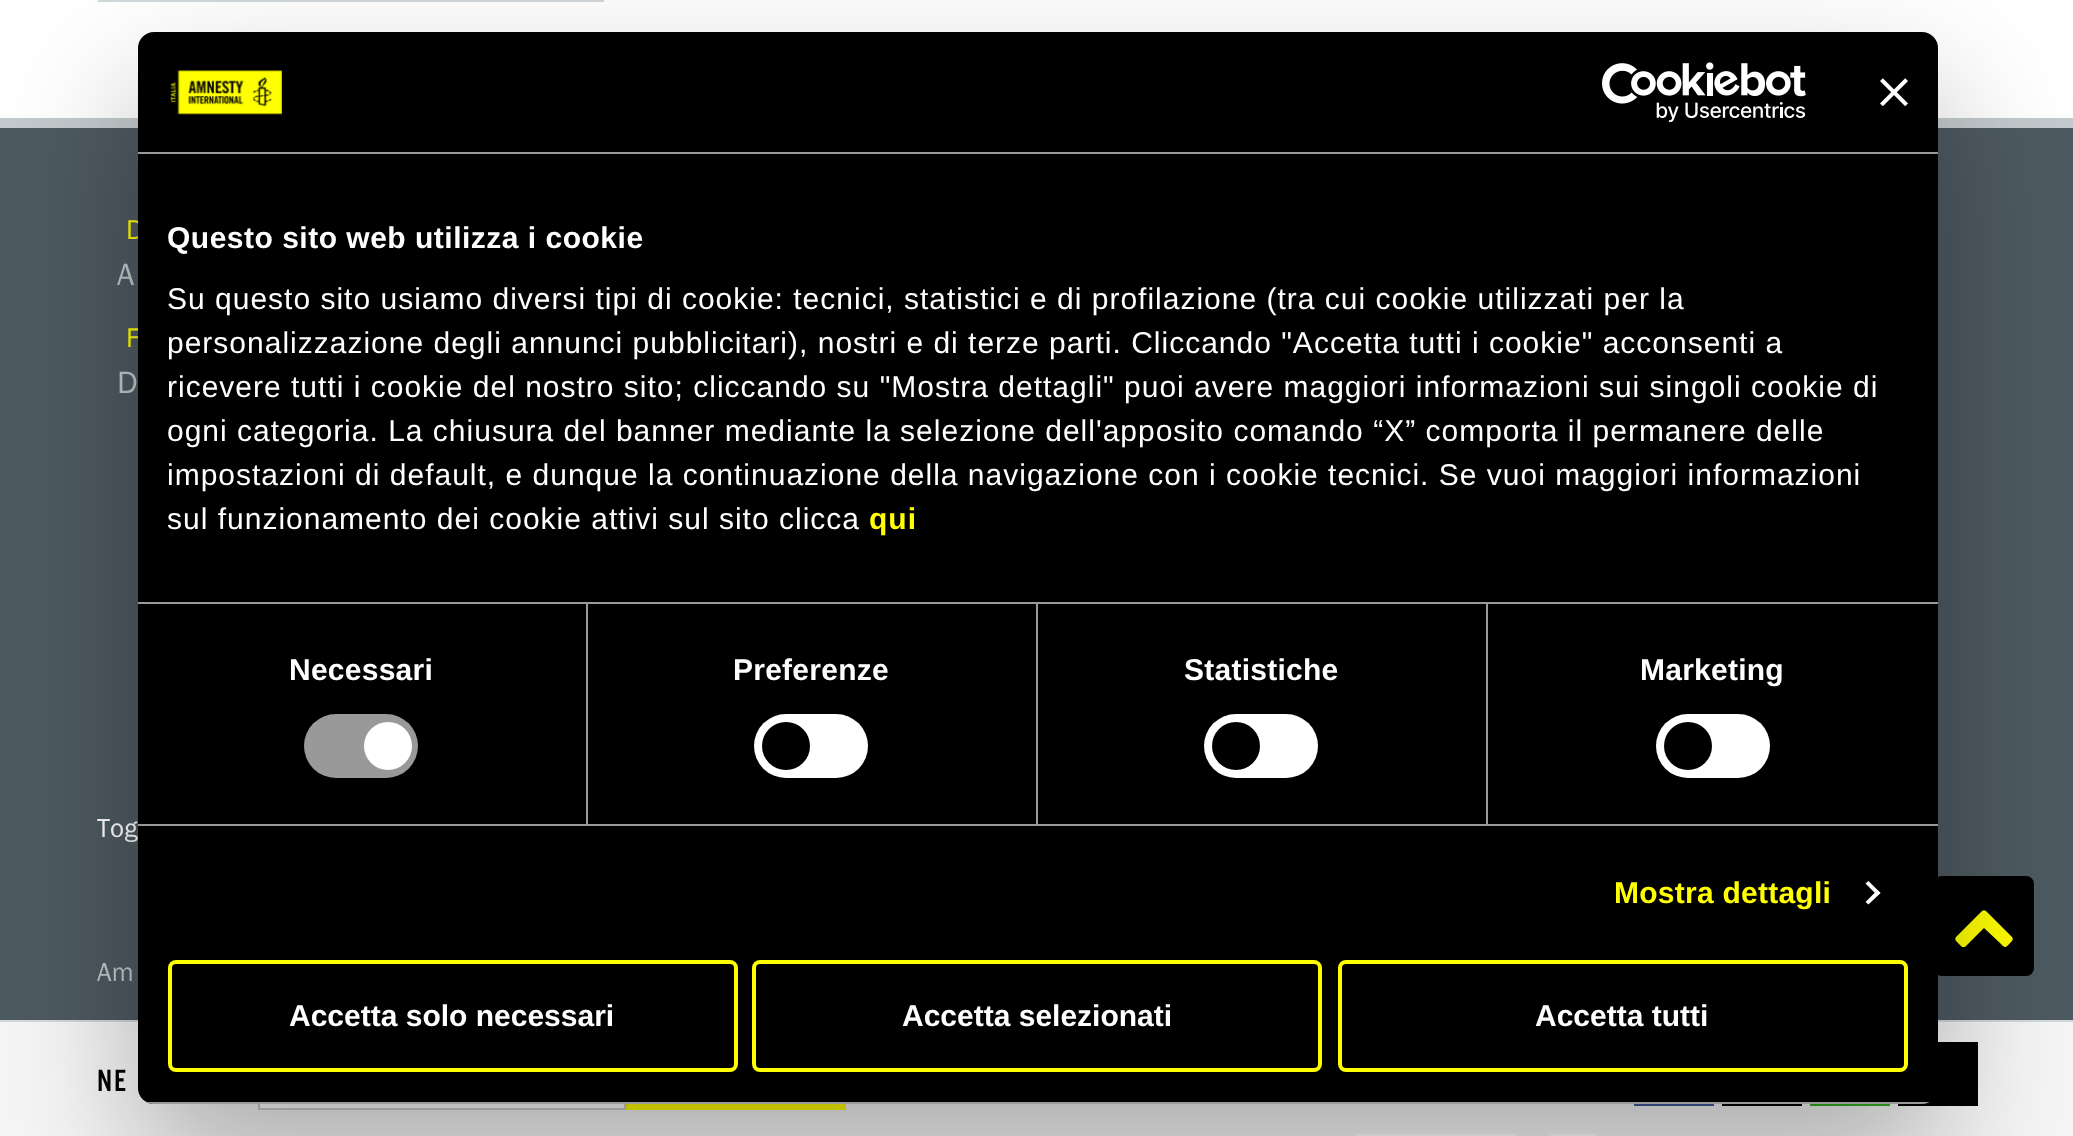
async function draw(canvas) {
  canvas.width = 2073;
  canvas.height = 1136;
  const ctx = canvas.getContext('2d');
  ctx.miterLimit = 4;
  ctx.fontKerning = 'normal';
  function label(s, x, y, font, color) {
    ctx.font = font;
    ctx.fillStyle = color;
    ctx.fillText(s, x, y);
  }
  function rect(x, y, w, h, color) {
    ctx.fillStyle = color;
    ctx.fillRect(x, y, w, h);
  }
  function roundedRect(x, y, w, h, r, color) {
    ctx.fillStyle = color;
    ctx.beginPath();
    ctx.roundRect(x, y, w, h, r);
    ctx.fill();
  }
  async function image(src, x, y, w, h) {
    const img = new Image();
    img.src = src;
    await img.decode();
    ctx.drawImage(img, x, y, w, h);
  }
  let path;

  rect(0, 0, 2073, 1136, '#fff');
  rect(0, 128, 2073, 1008, '#4e5a61');
  rect(0, 118, 2073, 10, '#c3cacd');
  label('D', 126, 239, '28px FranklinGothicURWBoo', '#ff0');
  label('A', 117, 285, '32px FranklinGothicURWBoo', '#c3cacd');
  label('F', 126, 347, '28px FranklinGothicURWBoo', '#ff0');
  label('D', 117, 393, '32px FranklinGothicURWBoo', '#c3cacd');
  label('Tog', 97, 837, '27px FranklinGothicURWBoo', '#fff');
  label('Am', 97, 981, '27px FranklinGothicURWBoo', '#c3cacd');
  rect(1356, 1134, 160, 2, '#fff');
  rect(1550, 1134, 46, 2, '#fff');
  roundedRect(1934, 876, 100, 100, 8, '#000');
  ctx.fillStyle = '#ff0';
  path = new Path2D('M2012 941C2013 940 2013 938 2012 937L1986 911C1985 910 1983 910 1982 911L1956 937C1955 938 1955 940 1956 941L1962 947C1963 947 1964 947 1965 947L1984 928L2000 943C2006 950 2006 947 2012 941Z');
  ctx.fill(path);
  ctx.strokeStyle = '#d1d8db';
  ctx.lineWidth = 2;
  ctx.strokeRect(99, -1, 504, 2);
  rect(0, 1022, 2073, 114, '#fffffff2');
  rect(0, 1020, 2073, 2, '#d1d8db');
  rect(260, 1104, 364, 4, '#fff');
  ctx.strokeStyle = '#ccc';
  ctx.strokeRect(259, 1043, 366, 66);
  rect(628, 1104, 214, 2, '#ff0');
  rect(842, 1104, 4, 6, '#ff0');
  path = new Path2D('M846 1110H626L628 1106H842Z');
  ctx.fill(path);
  ctx.fillStyle = '#ffeb00';
  path = new Path2D('M626 1110V1042L628 1046V1106Z');
  ctx.fill(path);
  rect(1634, 1104, 80, 2, '#3b5998');
  rect(1722, 1104, 80, 2, '#000');
  rect(1810, 1104, 80, 2, '#34af23');
  rect(1898, 1042, 80, 64, '#000');
  ctx.fillStyle = '#0000004d';
  ctx.filter = 'blur(68px)';
  ctx.beginPath();
  ctx.roundRect(138, 96, 1800, 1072, 16);
  ctx.fill();
  ctx.filter = 'none';
  roundedRect(138, 32, 1800, 1072, 16, '#000');
  rect(138, 152, 1800, 2, '#999');
  await image('assets/img1.png', 170, 70, 112, 45);
  await image('assets/img2.png', 1602, 62, 204, 60);
  await image('assets/img3.png', 1880, 78, 28, 28);
  rect(138, 602, 1800, 2, '#999');
  ctx.letterSpacing = '0.5px';
  label('Questo sito web utilizza i cookie', 167, 248, 'bold 30px Liberation Sans', '#fff');
  ctx.letterSpacing = '1px';
  label('Su questo sito usiamo diversi tipi di cookie: tecnici, statistici e di profilazione (tra cui cookie utilizzati per la', 167, 309, '30px Liberation Sans', '#fff');
  label('personalizzazione degli annunci pubblicitari), nostri e di terze parti. Cliccando "Accetta tutti i cookie" acconsenti a', 167, 353, '30px Liberation Sans', '#fff');
  label('ricevere tutti i cookie del nostro sito; cliccando su "Mostra dettagli" puoi avere maggiori informazioni sui singoli cookie di', 167, 397, '30px Liberation Sans', '#fff');
  label('ogni categoria. La chiusura del banner mediante la selezione dell\'apposito comando “X” comporta il permanere delle', 167, 441, '30px Liberation Sans', '#fff');
  label('impostazioni di default, e dunque la continuazione della navigazione con i cookie tecnici. Se vuoi maggiori informazioni', 167, 485, '30px Liberation Sans', '#fff');
  label('sul funzionamento dei cookie attivi sul sito clicca', 167, 529, '30px Liberation Sans', '#fff');
  label('qui', 869, 529, 'bold 30px Liberation Sans', '#ff0');
  rect(138, 824, 1800, 2, '#999');
  rect(586, 604, 2, 220, '#999');
  ctx.letterSpacing = '0.25px';
  label('Necessari', 289, 680, 'bold 30px Liberation Sans', '#fff');
  roundedRect(304, 714, 114, 64, 32, '#999');
  ctx.fillStyle = '#fff';
  ctx.beginPath();
  ctx.arc(388, 746, 24, 0, 2 * Math.PI);
  ctx.fill();
  rect(1036, 604, 2, 220, '#999');
  label('Preferenze', 733, 680, 'bold 30px Liberation Sans', '#fff');
  roundedRect(754, 714, 114, 64, 32, '#fff');
  ctx.fillStyle = '#000';
  ctx.beginPath();
  ctx.arc(786, 746, 24, 0, 2 * Math.PI);
  ctx.fill();
  rect(1486, 604, 2, 220, '#999');
  label('Statistiche', 1184, 680, 'bold 30px Liberation Sans', '#fff');
  roundedRect(1204, 714, 114, 64, 32, '#fff');
  ctx.fillStyle = '#000';
  ctx.beginPath();
  ctx.arc(1236, 746, 24, 0, 2 * Math.PI);
  ctx.fill();
  label('Marketing', 1640, 680, 'bold 30px Liberation Sans', '#fff');
  roundedRect(1656, 714, 114, 64, 32, '#fff');
  ctx.fillStyle = '#000';
  ctx.beginPath();
  ctx.arc(1688, 746, 24, 0, 2 * Math.PI);
  ctx.fill();
  label('Mostra dettagli', 1614, 903, 'bold 30px Liberation Sans', '#ff0');
  ctx.fillStyle = '#fff';
  path = new Path2D('M1868.5 881L1880.5 893L1877.5 895.5L1865.5 883.5Z');
  ctx.fill(path);
  path = new Path2D('M1877.5 890L1880.5 893L1868.5 904.5L1865.5 902Z');
  ctx.fill(path);
  ctx.save();
  ctx.beginPath();
  ctx.roundRect(138, 32, 1800, 1072, 16);
  ctx.clip();
  rect(138, 1102, 1800, 2, '#999');
  ctx.restore();
  ctx.beginPath();
  ctx.roundRect(170, 962, 566, 108, 6);
  ctx.strokeStyle = '#ff0';
  ctx.lineWidth = 4;
  ctx.stroke();
  ctx.letterSpacing = '0px';
  label('Accetta solo necessari', 289, 1026, 'bold 30px Liberation Sans', '#fff');
  ctx.beginPath();
  ctx.roundRect(754, 962, 566, 108, 6);
  ctx.stroke();
  label('Accetta selezionati', 902, 1026, 'bold 30px Liberation Sans', '#fff');
  ctx.beginPath();
  ctx.roundRect(1340, 962, 566, 108, 6);
  ctx.stroke();
  label('Accetta tutti', 1535, 1026, 'bold 30px Liberation Sans', '#fff');
  ctx.letterSpacing = '2px';
  label('NE', 97, 1091, '32px "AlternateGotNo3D"', '#000');
}

draw(document.querySelector('canvas'));
